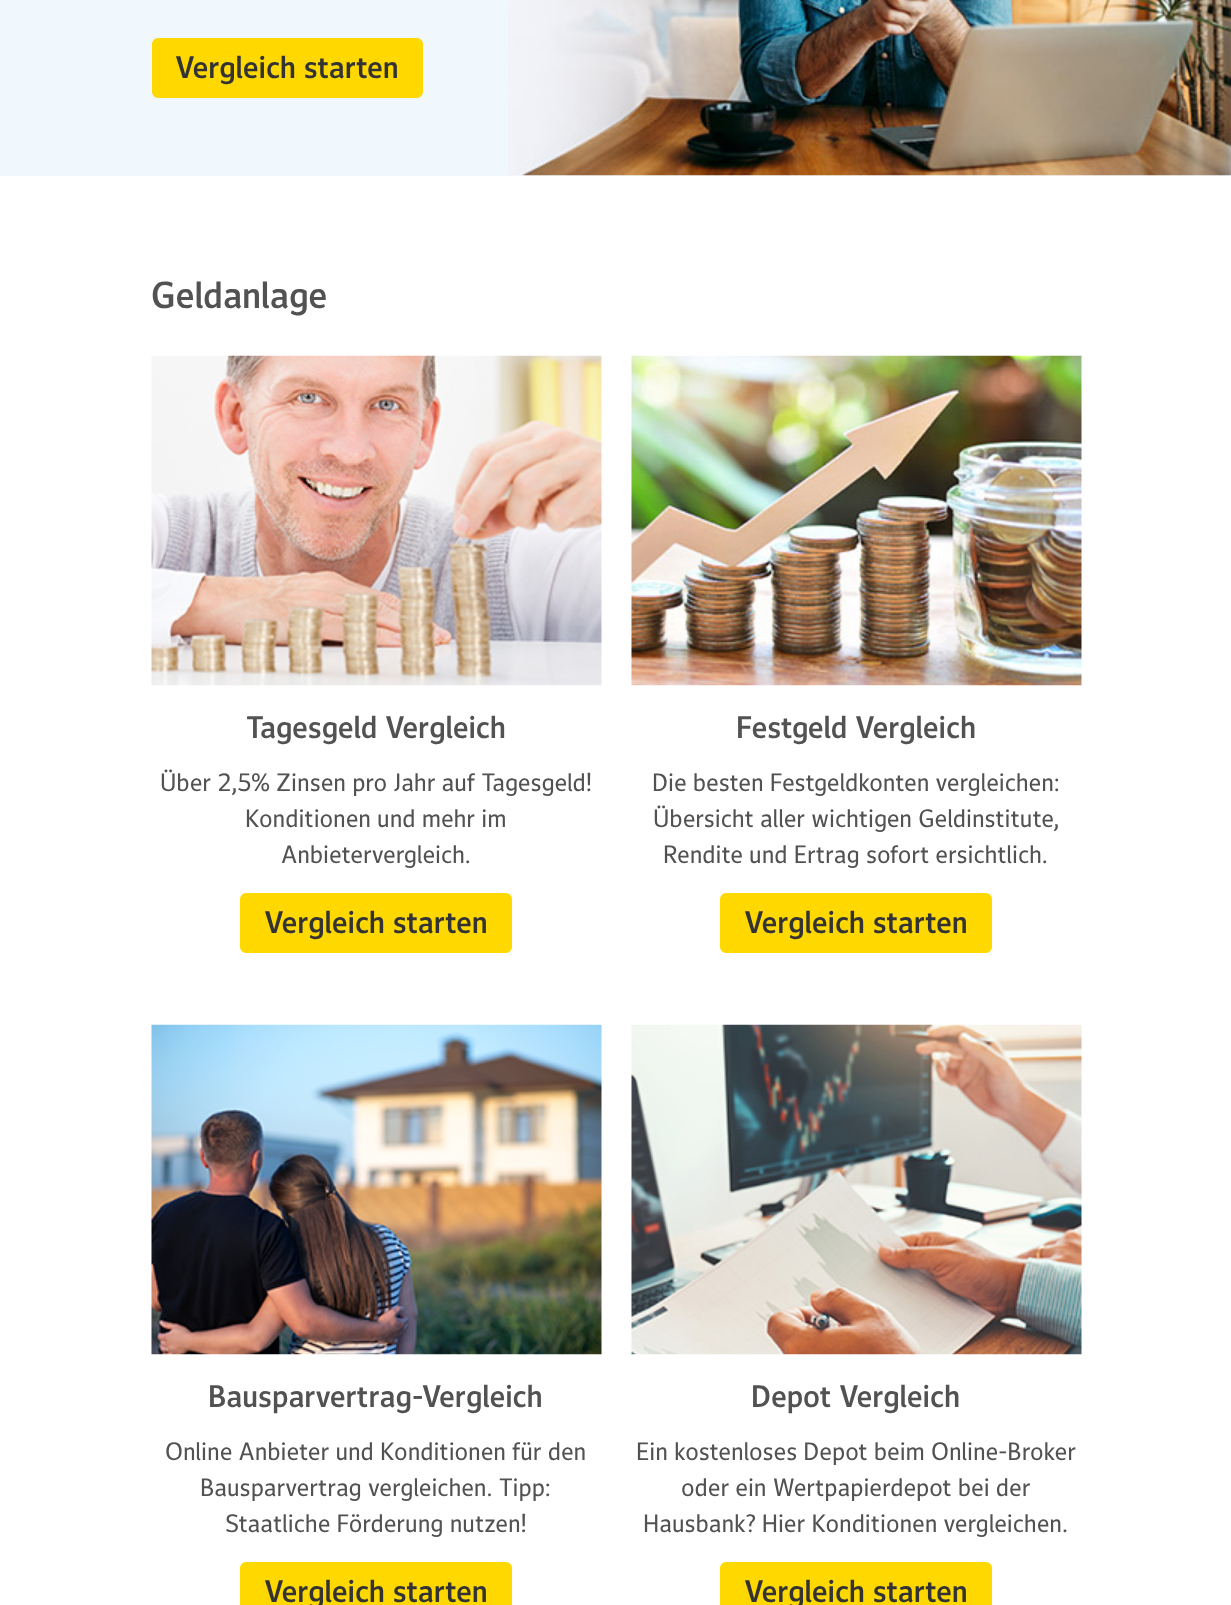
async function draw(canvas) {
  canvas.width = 1231;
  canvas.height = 1605;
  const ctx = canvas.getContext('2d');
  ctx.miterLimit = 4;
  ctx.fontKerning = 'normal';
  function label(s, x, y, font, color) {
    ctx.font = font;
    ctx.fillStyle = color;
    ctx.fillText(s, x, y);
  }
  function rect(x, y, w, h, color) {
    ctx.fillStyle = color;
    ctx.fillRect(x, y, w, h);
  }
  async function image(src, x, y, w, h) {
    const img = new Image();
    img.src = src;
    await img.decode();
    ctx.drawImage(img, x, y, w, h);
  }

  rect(0, 0, 1231, 1605, '#fff');
  rect(0, 0, 1231, 176, '#f1f8fd');
  ctx.fillStyle = '#ffd800';
  ctx.beginPath();
  ctx.roundRect(153, 39, 269, 58, 5);
  ctx.fill();
  ctx.strokeStyle = '#ffd800';
  ctx.lineWidth = 2;
  ctx.stroke();
  label('Vergleich starten', 175, 78, '30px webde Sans', '#333');
  await image('assets/img1.png', 508, 0, 723, 176);
  label('Geldanlage', 151, 308, '36px webde Sans', '#525252');
  await image('assets/img2.png', 151, 355, 451, 331);
  label('Tagesgeld Vergleich', 246, 738, '30px webde Sans', '#525252');
  label('Über 2,5% Zinsen pro Jahr auf Tagesgeld!', 160, 791, '24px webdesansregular', '#525252');
  label('Konditionen und mehr im', 245, 827, '24px webdesansregular', '#525252');
  label('Anbietervergleich.', 281, 863, '24px webdesansregular', '#525252');
  ctx.fillStyle = '#ffd800';
  ctx.beginPath();
  ctx.roundRect(241, 894, 270, 58, 5);
  ctx.fill();
  ctx.stroke();
  label('Vergleich starten', 264, 933, '30px webde Sans', '#333');
  await image('assets/img3.png', 631, 355, 451, 331);
  label('Festgeld Vergleich', 736, 738, '30px webde Sans', '#525252');
  label('Die besten Festgeldkonten vergleichen:', 652, 791, '24px webdesansregular', '#525252');
  label('Übersicht aller wichtigen Geldinstitute,', 653, 827, '24px webdesansregular', '#525252');
  label('Rendite und Ertrag sofort ersichtlich.', 663, 863, '24px webdesansregular', '#525252');
  ctx.fillStyle = '#ffd800';
  ctx.beginPath();
  ctx.roundRect(721, 894, 270, 58, 5);
  ctx.fill();
  ctx.stroke();
  label('Vergleich starten', 744, 933, '30px webde Sans', '#333');
  await image('assets/img4.png', 151, 1024, 451, 331);
  label('Bausparvertrag-Vergleich', 208, 1407, '30px webde Sans', '#525252');
  label('Online Anbieter und Konditionen für den', 165, 1460, '24px webdesansregular', '#525252');
  label('Bausparvertrag vergleichen. Tipp:', 200, 1496, '24px webdesansregular', '#525252');
  label('Staatliche Förderung nutzen!', 225, 1532, '24px webdesansregular', '#525252');
  ctx.fillStyle = '#ffd800';
  ctx.beginPath();
  ctx.roundRect(241, 1563, 270, 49, 5);
  ctx.fill();
  ctx.stroke();
  label('Vergleich starten', 264, 1602, '30px webde Sans', '#333');
  await image('assets/img5.png', 631, 1024, 451, 331);
  label('Depot Vergleich', 751, 1407, '30px webde Sans', '#525252');
  label('Ein kostenloses Depot beim Online-Broker', 636, 1460, '24px webdesansregular', '#525252');
  label('oder ein Wertpapierdepot bei der', 681, 1496, '24px webdesansregular', '#525252');
  label('Hausbank? Hier Konditionen vergleichen.', 643, 1532, '24px webdesansregular', '#525252');
  ctx.fillStyle = '#ffd800';
  ctx.beginPath();
  ctx.roundRect(721, 1563, 270, 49, 5);
  ctx.fill();
  ctx.stroke();
  label('Vergleich starten', 744, 1602, '30px webde Sans', '#333');
}

draw(document.querySelector('canvas'));
